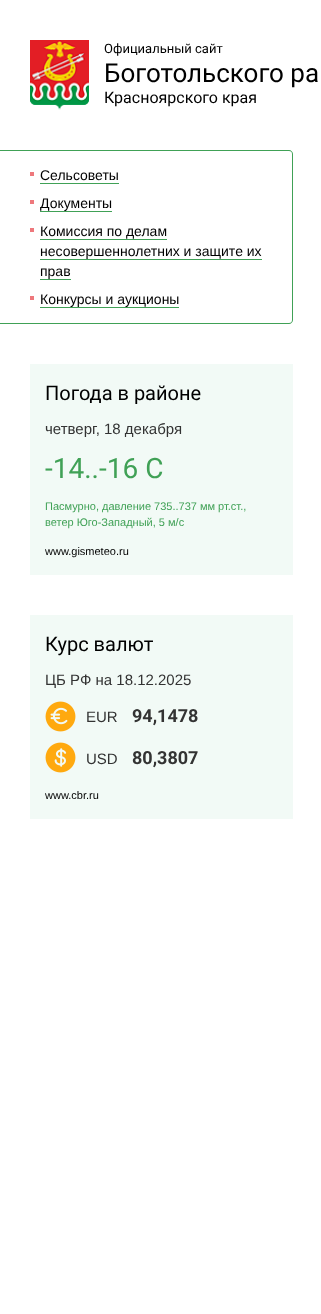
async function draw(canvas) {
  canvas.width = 321;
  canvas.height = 1314;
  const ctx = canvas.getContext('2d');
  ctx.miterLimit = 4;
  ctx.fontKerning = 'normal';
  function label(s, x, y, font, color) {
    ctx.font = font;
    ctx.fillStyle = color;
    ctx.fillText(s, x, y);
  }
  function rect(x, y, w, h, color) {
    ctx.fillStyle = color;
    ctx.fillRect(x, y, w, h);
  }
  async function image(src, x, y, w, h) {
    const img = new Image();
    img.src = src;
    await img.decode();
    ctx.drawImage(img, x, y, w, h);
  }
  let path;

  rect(0, 0, 321, 1314, '#fff');
  await image('assets/img1.png', 30, 40, 59, 70);
  label('Официальный сайт', 104, 53, '13px Roboto', '#000');
  label('Боготольского ра', 104, 82, '26px Roboto', '#000');
  label('Красноярского края', 104, 103, '16px Roboto', '#000');
  ctx.fillStyle = '#40a156';
  path = new Path2D('M0 150H289C291 150 293 152 293 154V320C293 322 291 324 289 324H0ZM0 151H289C291 151 292 152 292 154V320C292 322 291 323 289 323H0Z');
  ctx.fill(path, 'evenodd');
  rect(30, 172, 4, 4, '#ee787c');
  label('Сельсоветы', 40, 180, '14px Liberation Sans', '#000');
  rect(40, 183, 79, 1, '#40a156');
  rect(30, 200, 4, 4, '#ee787c');
  label('Документы', 40, 208, '14px Liberation Sans', '#000');
  rect(40, 211, 72, 1, '#40a156');
  rect(30, 228, 4, 4, '#ee787c');
  label('Комиссия по делам', 40, 236, '14px Liberation Sans', '#000');
  rect(40, 239, 127, 1, '#40a156');
  label('несовершеннолетних и защите их', 40, 256, '14px Liberation Sans', '#000');
  rect(40, 259, 222, 1, '#40a156');
  label('прав', 40, 276, '14px Liberation Sans', '#000');
  rect(40, 279, 31, 1, '#40a156');
  rect(30, 296, 4, 4, '#ee787c');
  label('Конкурсы и аукционы', 40, 304, '14px Liberation Sans', '#000');
  rect(40, 307, 139, 1, '#40a156');
  rect(30, 364, 263, 211, '#f2faf6');
  label('Погода в районе', 45, 400, '20px Roboto', '#000');
  label('четверг, 18 декабря', 45, 434, '15px Liberation Sans', '#333');
  label('-14..-16 С', 45, 478, '28px Roboto', '#40a156');
  label('Пасмурно, давление 735..737 мм рт.ст.,', 45, 510, '11px Liberation Sans', '#40a156');
  label('ветер Юго-Западный, 5 м/с', 45, 526, '11px Liberation Sans', '#40a156');
  label('www.gismeteo.ru', 45, 555, '11px Liberation Sans', '#000');
  rect(30, 615, 263, 204, '#f2faf6');
  label('Курс валют', 45, 651, '20px Roboto', '#000');
  label('ЦБ РФ на 18.12.2025', 45, 685, '15px Liberation Sans', '#333');
  await image('assets/img2.png', 45, 701, 31, 31);
  label('EUR', 86, 722, '15px Liberation Sans', '#333');
  label('94,1478', 132, 722, 'bold 18px Roboto', '#333');
  await image('assets/img3.png', 45, 742, 31, 31);
  label('USD', 86, 764, '15px Liberation Sans', '#333');
  label('80,3807', 132, 764, 'bold 18px Roboto', '#333');
  label('www.cbr.ru', 45, 799, '11px Liberation Sans', '#000');
}

draw(document.querySelector('canvas'));
